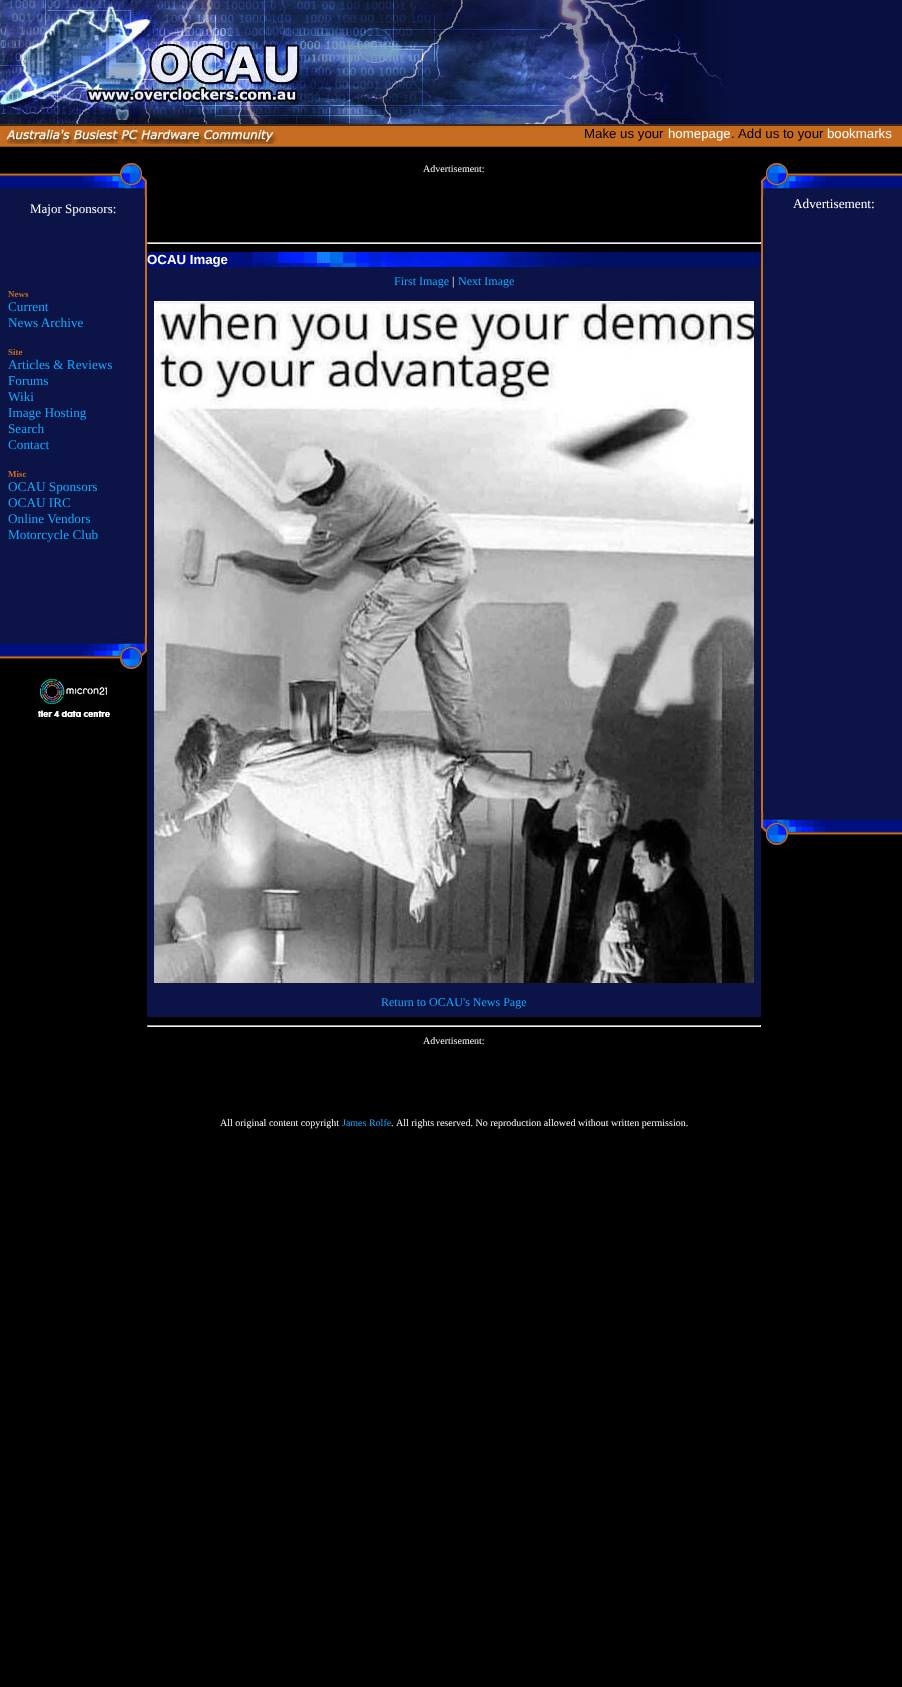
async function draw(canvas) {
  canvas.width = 902;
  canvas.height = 1687;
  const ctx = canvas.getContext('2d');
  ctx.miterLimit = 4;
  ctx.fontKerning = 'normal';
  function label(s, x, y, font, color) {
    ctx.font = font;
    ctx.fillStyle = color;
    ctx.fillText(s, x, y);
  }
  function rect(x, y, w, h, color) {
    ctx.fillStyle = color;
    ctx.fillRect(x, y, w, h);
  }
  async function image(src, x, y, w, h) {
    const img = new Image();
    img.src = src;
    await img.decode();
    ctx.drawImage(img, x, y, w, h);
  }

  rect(0, 0, 902, 1687, '#000');
  rect(750, 0, 152, 124, '#081041');
  await image('assets/img1.png', 0, 0, 750, 124);
  await image('assets/img2.png', 21, 8, 275, 93);
  await image('assets/img3.png', 0, 124, 902, 23);
  await image('assets/img4.png', 2, 126, 275, 18);
  label('Make us your', 584, 138, '13.25px Liberation Sans', '#000');
  label('homepage', 668, 138, '13.25px Liberation Sans', '#fff');
  label('.', 731, 138, '13.25px Liberation Sans', '#000');
  label('Add us to your', 738, 138, '13.25px Liberation Sans', '#000');
  label('bookmarks', 827, 138, '13.25px Liberation Sans', '#fff');
  await image('assets/img5.png', 0, 196, 147, 440);
  await image('assets/img6.png', 0, 163, 147, 33);
  label('Major Sponsors:', 30, 213, '13px Liberation Serif', '#fff');
  label('News', 8, 297, 'bold 9px Liberation Serif', '#c66c20');
  label('Current', 8, 311, '13.25px Liberation Serif', '#1af');
  label('News Archive', 8, 327, '13.25px Liberation Serif', '#1af');
  label('Site', 8, 355, 'bold 9px Liberation Serif', '#c66c20');
  label('Articles & Reviews', 8, 369, '13.25px Liberation Serif', '#1af');
  label('Forums', 8, 385, '13.25px Liberation Serif', '#1af');
  label('Wiki', 8, 401, '13.25px Liberation Serif', '#1af');
  label('Image Hosting', 8, 417, '13.25px Liberation Serif', '#1af');
  label('Search', 8, 433, '13.25px Liberation Serif', '#1af');
  label('Contact', 8, 449, '13.25px Liberation Serif', '#1af');
  label('Misc', 8, 477, 'bold 9px Liberation Serif', '#c66c20');
  label('OCAU Sponsors', 8, 491, '13.25px Liberation Serif', '#1af');
  label('OCAU IRC', 8, 507, '13.25px Liberation Serif', '#1af');
  label('Online Vendors', 8, 523, '13.25px Liberation Serif', '#1af');
  label('Motorcycle Club', 8, 539, '13.25px Liberation Serif', '#1af');
  await image('assets/img7.png', 0, 636, 147, 33);
  await image('assets/img8.png', 36, 677, 74, 40);
  label('Advertisement:', 423, 172, '10px Liberation Serif', '#fff');
  rect(147, 242, 614, 1, '#9f9f9f');
  rect(760, 242, 1, 2, '#eee');
  rect(147, 243, 614, 1, '#eee');
  rect(147, 242, 1, 2, '#9f9f9f');
  await image('assets/img9.png', 147, 252, 614, 15);
  label('OCAU Image', 147, 264, 'bold 13.25px Liberation Sans', '#fff');
  rect(147, 267, 614, 750, '#0c1347');
  label('First Image', 394, 285, '12px Liberation Serif', '#1af');
  label('|', 452, 285, '12px Liberation Serif', '#fff');
  label('Next Image', 458, 285, '12px Liberation Serif', '#1af');
  await image('assets/img10.png', 154, 301, 600, 682);
  label('Return to OCAU\'s News Page', 381, 1006, '12px Liberation Serif', '#1af');
  rect(147, 1025, 614, 1, '#9f9f9f');
  rect(760, 1025, 1, 2, '#eee');
  rect(147, 1026, 614, 1, '#eee');
  rect(147, 1025, 1, 2, '#9f9f9f');
  label('Advertisement:', 423, 1044, '10px Liberation Serif', '#fff');
  label('All original content copyright', 220, 1126, '10px Liberation Serif', '#fff');
  label('James Rolfe', 342, 1126, '10px Liberation Serif', '#1af');
  label('.', 391, 1126, '10px Liberation Serif', '#fff');
  label('All rights reserved. No reproduction allowed without written permission.', 396, 1126, '10px Liberation Serif', '#fff');
  await image('assets/img11.png', 761, 196, 141, 616);
  await image('assets/img12.png', 761, 163, 141, 33);
  label('Advertisement:', 793, 208, '13.25px Liberation Serif', '#fff');
  await image('assets/img13.png', 761, 812, 141, 33);
}

draw(document.querySelector('canvas'));
